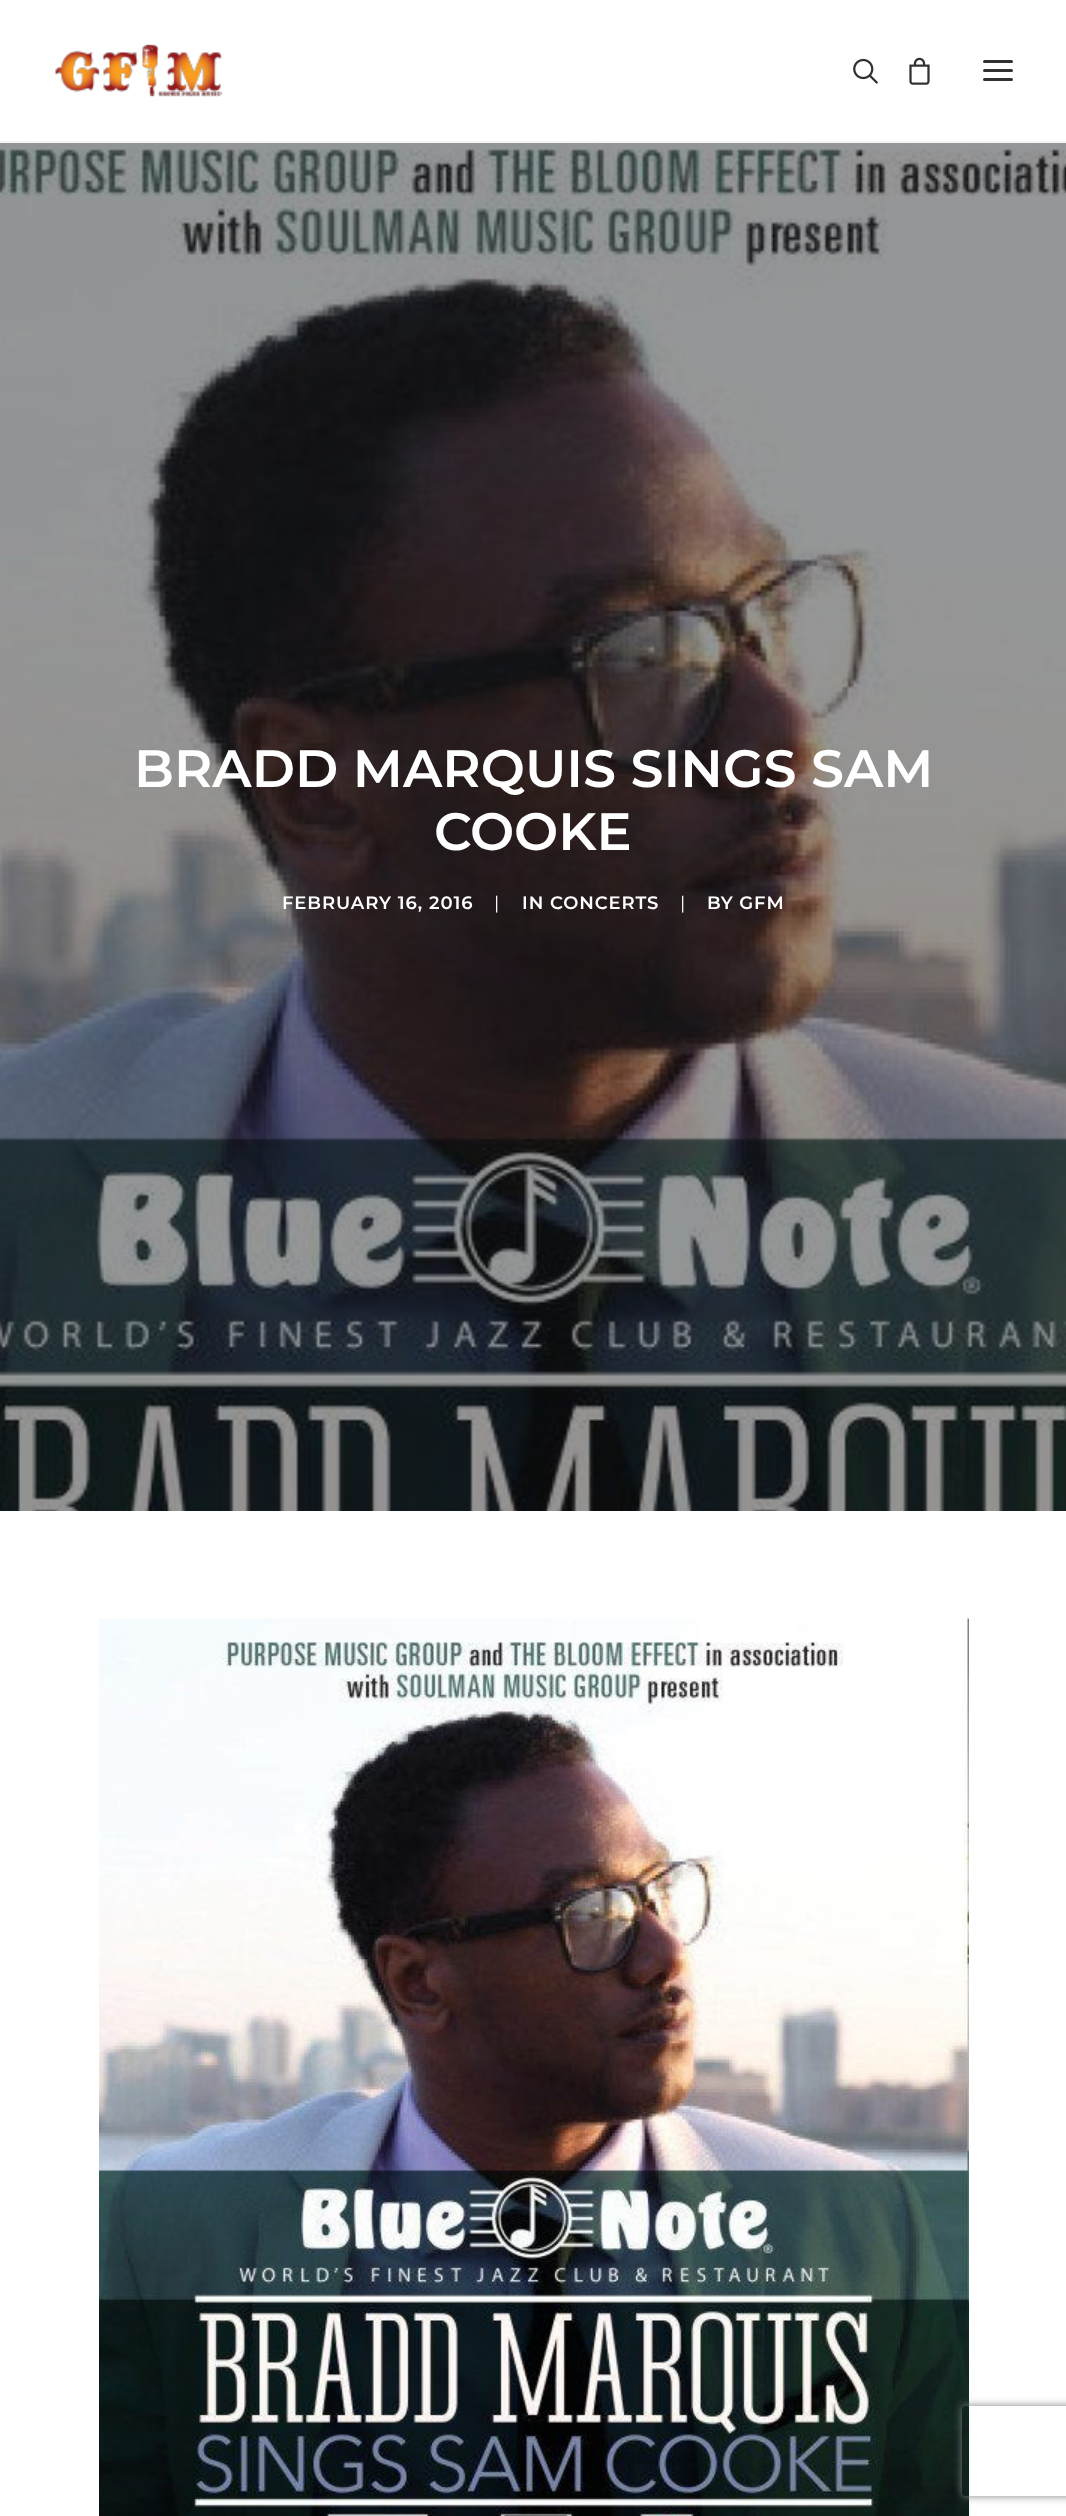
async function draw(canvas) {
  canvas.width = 1066;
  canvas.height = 2516;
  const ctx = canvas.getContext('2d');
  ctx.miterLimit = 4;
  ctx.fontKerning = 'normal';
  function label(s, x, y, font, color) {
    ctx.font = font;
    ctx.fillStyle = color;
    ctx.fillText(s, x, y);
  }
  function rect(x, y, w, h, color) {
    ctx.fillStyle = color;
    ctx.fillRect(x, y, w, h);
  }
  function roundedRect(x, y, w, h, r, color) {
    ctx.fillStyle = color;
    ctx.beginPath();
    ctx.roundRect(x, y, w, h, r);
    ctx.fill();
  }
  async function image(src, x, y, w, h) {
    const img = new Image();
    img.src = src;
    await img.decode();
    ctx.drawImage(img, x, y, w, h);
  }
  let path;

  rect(0, 0, 1066, 2516, '#fff');
  rect(0, 141, 1066, 2, '#f5f5f5');
  await image('assets/img1.png', 55, 43, 168, 54);
  await image('assets/img2.png', 853, 58, 25, 26);
  await image('assets/img3.png', 909, 57, 21, 28);
  roundedRect(983, 69, 30, 3, 1.5, '#303133');
  roundedRect(983, 60, 30, 3, 1.5, '#303133');
  roundedRect(983, 78, 30, 3, 1.5, '#303133');
  await image('assets/img4.png', 0, 143, 1066, 1368);
  label('BRADD MARQUIS SINGS SAM', 134, 787, '600 52.5px Montserrat', '#fff');
  label('COOKE', 434, 850, '600 52.5px Montserrat', '#fff');
  ctx.letterSpacing = '0.9px';
  label('FEBRUARY 16, 2016', 282, 909, '600 18px Montserrat', '#fff');
  label('|', 494, 909, '18px Montserrat', '#fff');
  label('IN CONCERTS', 522, 909, '600 18px Montserrat', '#fff');
  label('|', 680, 909, '18px Montserrat', '#fff');
  label('BY GFM', 707, 909, '600 18px Montserrat', '#fff');
  await image('assets/img5.png', 99, 1618, 870, 898);
  ctx.save();
  path = new Path2D('M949 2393H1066V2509H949ZM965 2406H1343C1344.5 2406 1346 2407.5 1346 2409V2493C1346 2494.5 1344.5 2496 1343 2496H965C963.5 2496 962 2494.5 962 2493V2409C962 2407.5 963.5 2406 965 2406Z');
  ctx.clip(path, 'evenodd');
  ctx.fillStyle = '#808080';
  ctx.filter = 'blur(4px)';
  ctx.beginPath();
  ctx.roundRect(962, 2406, 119, 90, 3);
  ctx.fill();
  ctx.filter = 'none';
  ctx.restore();
}

draw(document.querySelector('canvas'));
